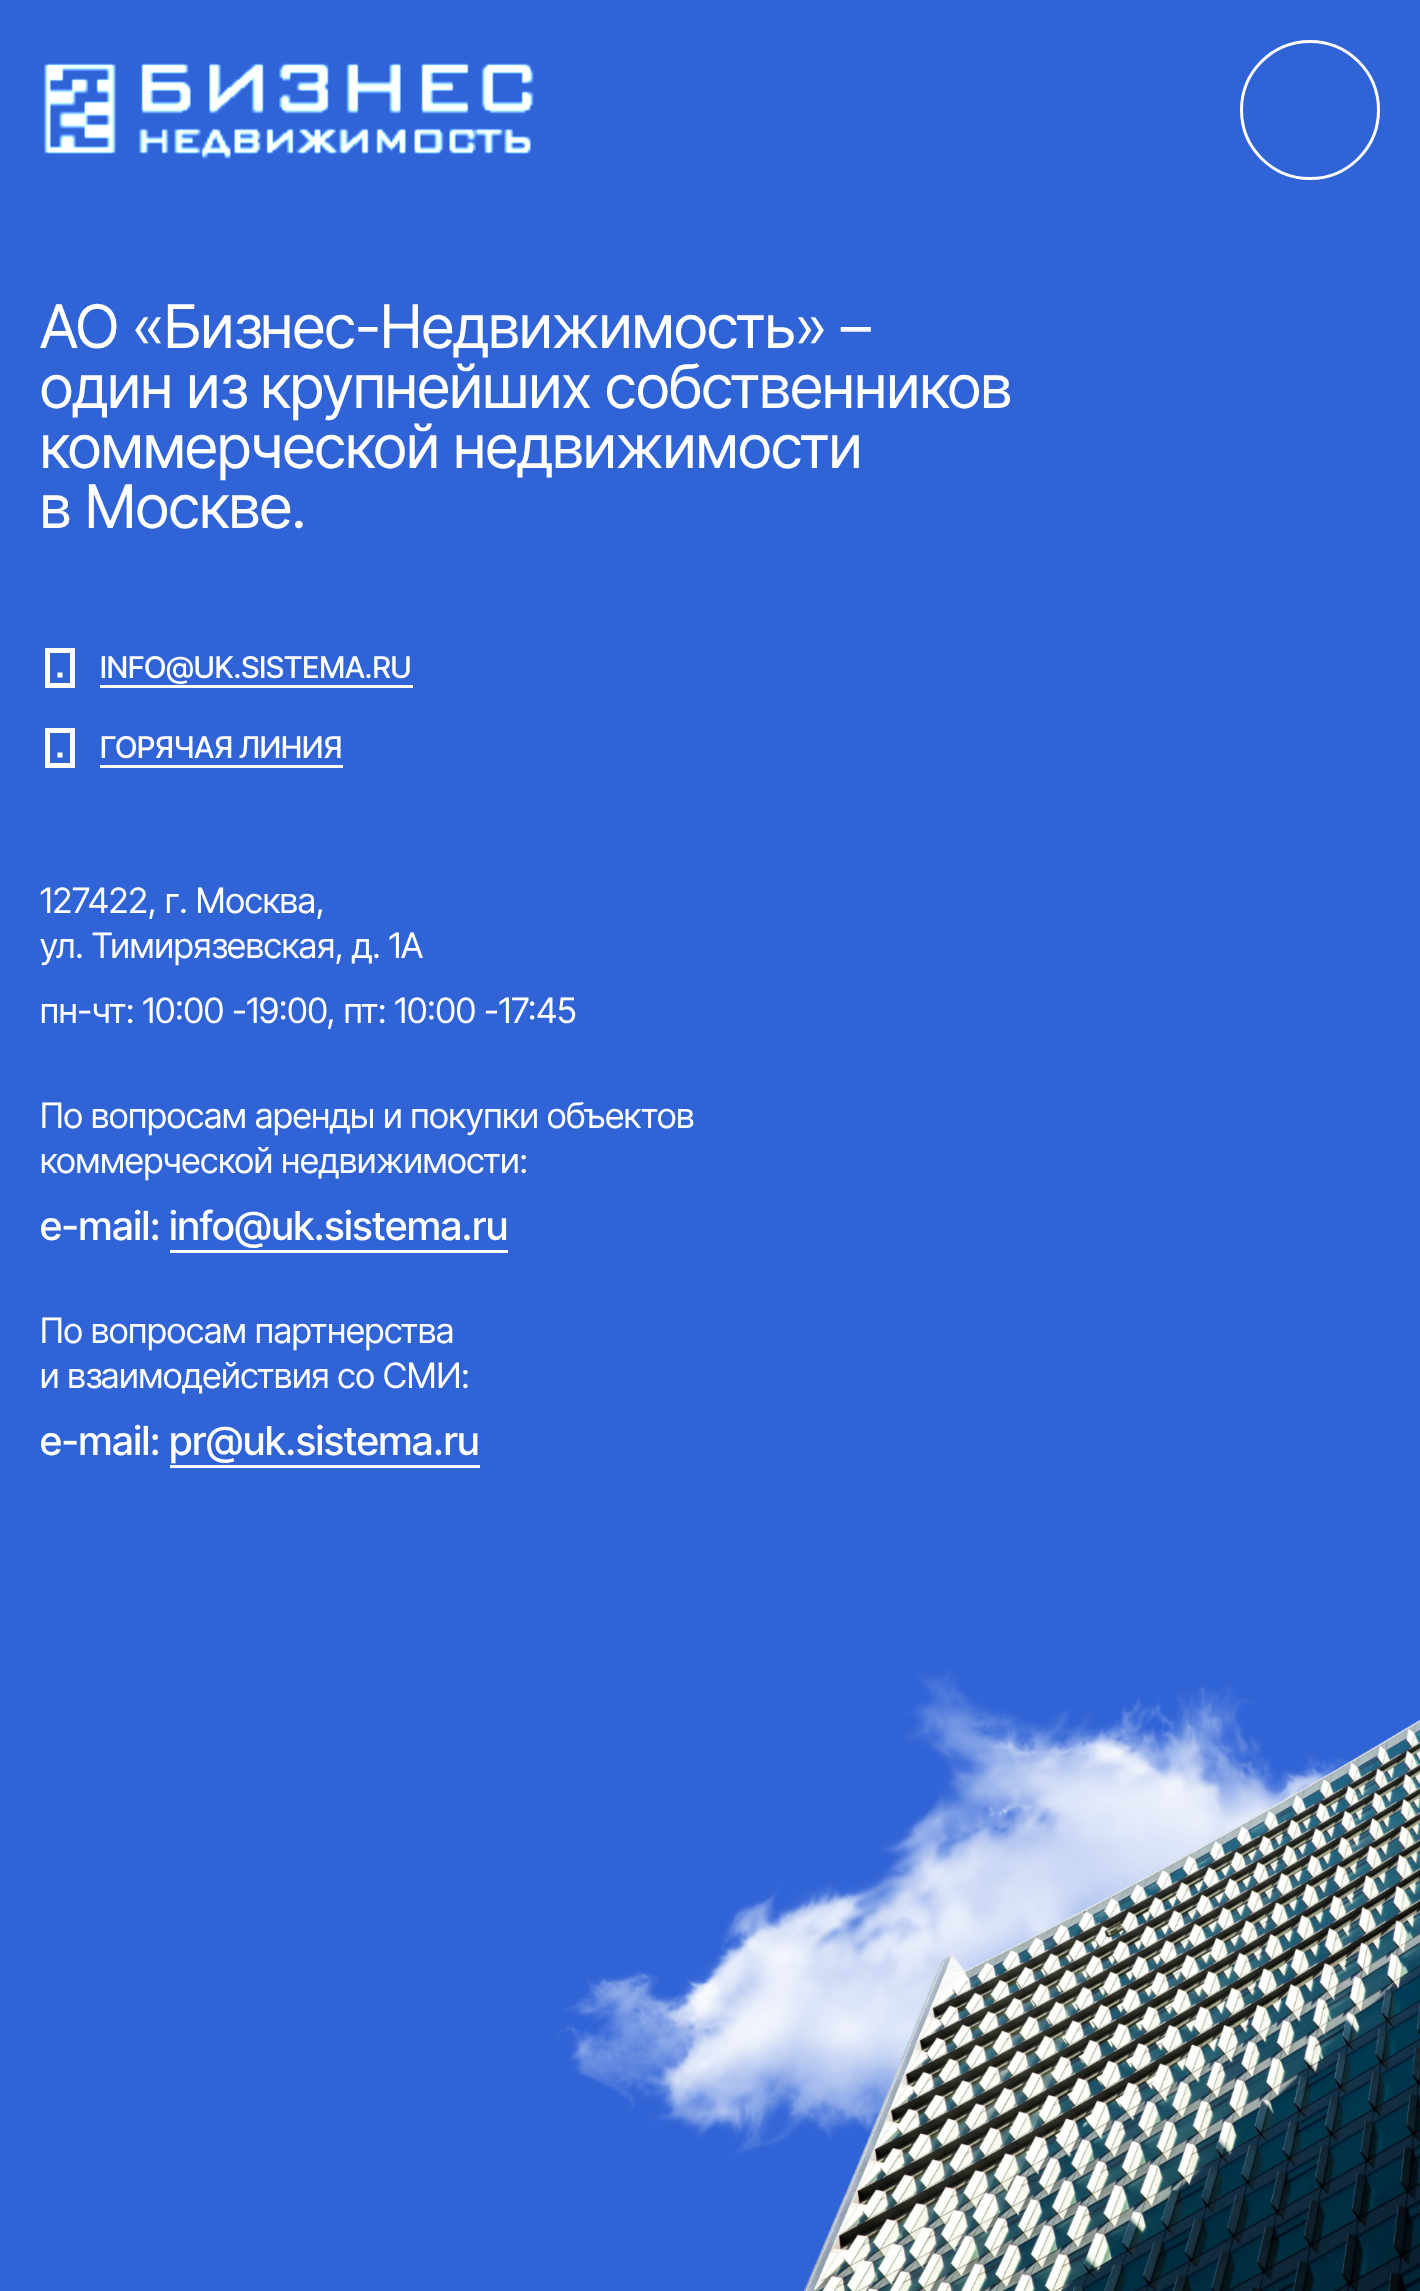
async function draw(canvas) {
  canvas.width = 1420;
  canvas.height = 2291;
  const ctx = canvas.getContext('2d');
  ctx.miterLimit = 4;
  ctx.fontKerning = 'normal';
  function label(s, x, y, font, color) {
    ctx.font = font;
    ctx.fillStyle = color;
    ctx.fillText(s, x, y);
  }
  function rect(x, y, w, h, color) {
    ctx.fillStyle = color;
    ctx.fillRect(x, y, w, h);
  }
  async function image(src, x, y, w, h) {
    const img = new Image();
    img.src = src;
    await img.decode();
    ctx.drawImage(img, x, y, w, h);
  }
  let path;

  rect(0, 0, 1420, 2291, '#3063d6');
  await image('assets/img1.png', 556, 1669, 864, 622);
  await image('assets/img2.png', 44, 63, 490, 96);
  ctx.beginPath();
  ctx.arc(1310, 110, 68.5, 0, 2 * Math.PI);
  ctx.strokeStyle = '#fff';
  ctx.lineWidth = 3;
  ctx.stroke();
  label('АО «Бизнес-Недвижимость» –', 40, 348, '60px Inter Tight', '#fff');
  label('один из крупнейших собственников', 40, 408, '60px Inter Tight', '#fff');
  label('коммерческой недвижимости', 40, 468, '60px Inter Tight', '#fff');
  label('в Москве.', 40, 528, '60px Inter Tight', '#fff');
  rect(70, 648, 5, 40, '#fff');
  rect(45, 648, 30, 5, '#fff');
  rect(45, 683, 30, 5, '#fff');
  path = new Path2D('M62.5 672.5V677.5H57.5V672.5Z');
  ctx.fill(path);
  rect(45, 648, 5, 40, '#fff');
  label('INFO@UK.SISTEMA.RU', 100, 678, '500 30px Inter Tight', '#fff');
  rect(100, 685, 313, 3, '#fff');
  rect(70, 728, 5, 40, '#fff');
  rect(45, 728, 30, 5, '#fff');
  rect(45, 763, 30, 5, '#fff');
  path = new Path2D('M62.5 752.5V757.5H57.5V752.5Z');
  ctx.fill(path);
  rect(45, 728, 5, 40, '#fff');
  label('ГОРЯЧАЯ ЛИНИЯ', 100, 758, '500 30px Inter Tight', '#fff');
  rect(100, 765, 243, 3, '#fff');
  label('127422, г. Москва,', 40, 913, '35px Inter Tight', '#fff');
  label('ул. Тимирязевская, д. 1А', 40, 958, '35px Inter Tight', '#fff');
  label('пн-чт: 10:00 -19:00, пт: 10:00 -17:45', 40, 1023, '35px Inter Tight', '#fff');
  label('По вопросам аренды и покупки объектов', 40, 1128, '35px Inter Tight', '#fff');
  label('коммерческой недвижимости:', 40, 1173, '35px Inter Tight', '#fff');
  label('e-mail: info@uk.sistema.ru', 40, 1240, '500 40px Inter Tight', '#fff');
  rect(170, 1250, 338, 3, '#fff');
  label('По вопросам партнерства', 40, 1343, '35px Inter Tight', '#fff');
  label('и взаимодействия со СМИ:', 40, 1388, '35px Inter Tight', '#fff');
  label('e-mail: pr@uk.sistema.ru', 40, 1455, '500 40px Inter Tight', '#fff');
  rect(170, 1465, 310, 3, '#fff');
}

draw(document.querySelector('canvas'));
